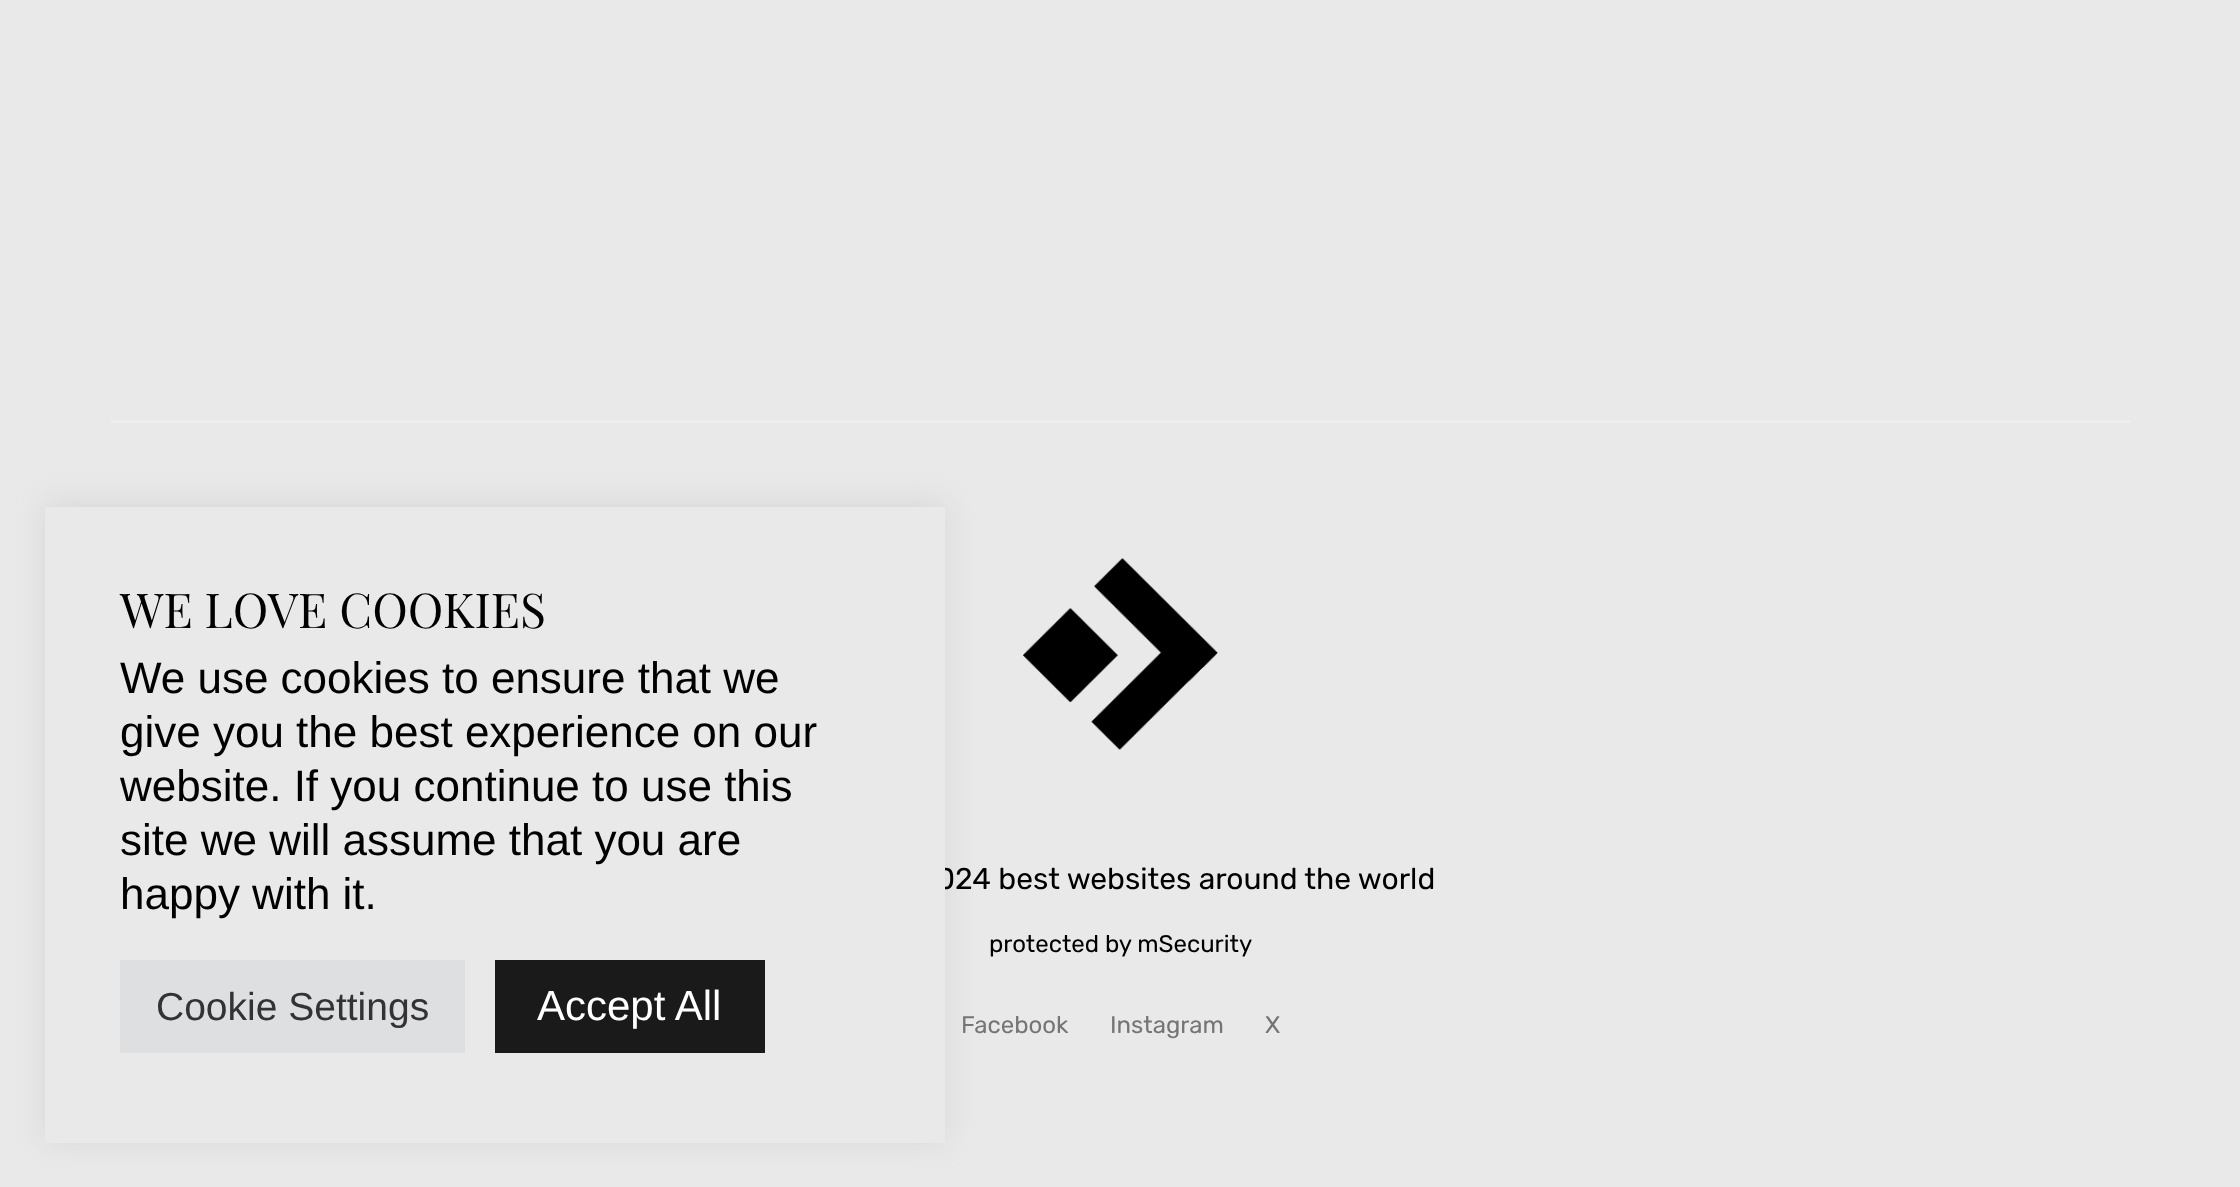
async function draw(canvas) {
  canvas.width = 2240;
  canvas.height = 1187;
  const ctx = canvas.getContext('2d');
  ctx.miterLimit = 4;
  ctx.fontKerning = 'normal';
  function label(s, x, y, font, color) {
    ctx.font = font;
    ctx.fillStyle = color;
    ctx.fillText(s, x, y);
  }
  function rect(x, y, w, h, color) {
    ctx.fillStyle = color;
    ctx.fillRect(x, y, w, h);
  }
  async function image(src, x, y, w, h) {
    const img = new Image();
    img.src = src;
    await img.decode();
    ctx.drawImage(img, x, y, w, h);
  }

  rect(0, 0, 2240, 1187, '#e9e9e9');
  ctx.fillStyle = '#acabab4d';
  ctx.filter = 'blur(15px)';
  ctx.beginPath();
  ctx.rect(45, 504, 900, 636);
  ctx.fill();
  ctx.filter = 'none';
  label('024 best websites around the world', 936, 889, '30px Rubik', '#000');
  rect(45, 507, 900, 636, '#e9e9e9');
  label('WE LOVE COOKIES', 120, 628, '48px Playfair Display', '#000');
  label('We use cookies to ensure that we', 120, 693, '44px Liberation Sans', '#000');
  label('give you the best experience on our', 120, 747, '44px Liberation Sans', '#000');
  label('website. If you continue to use this', 120, 801, '44px Liberation Sans', '#000');
  label('site we will assume that you are', 120, 855, '44px Liberation Sans', '#000');
  label('happy with it.', 120, 909, '44px Liberation Sans', '#000');
  rect(120, 960, 345, 93, '#dedfe0');
  label('Cookie Settings', 156, 1020, '39px Liberation Sans', '#333');
  rect(495, 960, 270, 93, '#1a1a1a');
  label('Accept All', 537, 1020, '42px Liberation Sans', '#fff');
  rect(111, 420, 2019, 3, '#eee');
  await image('assets/img1.png', 1023, 558, 195, 192);
  label('protected by mSecurity', 989, 952, '24px Rubik', '#000');
  label('Facebook', 961, 1033, '24px Rubik', '#757575');
  label('Instagram', 1110, 1033, '24px Rubik', '#757575');
  label('X', 1265, 1033, '24px Rubik', '#757575');
}

draw(document.querySelector('canvas'));
